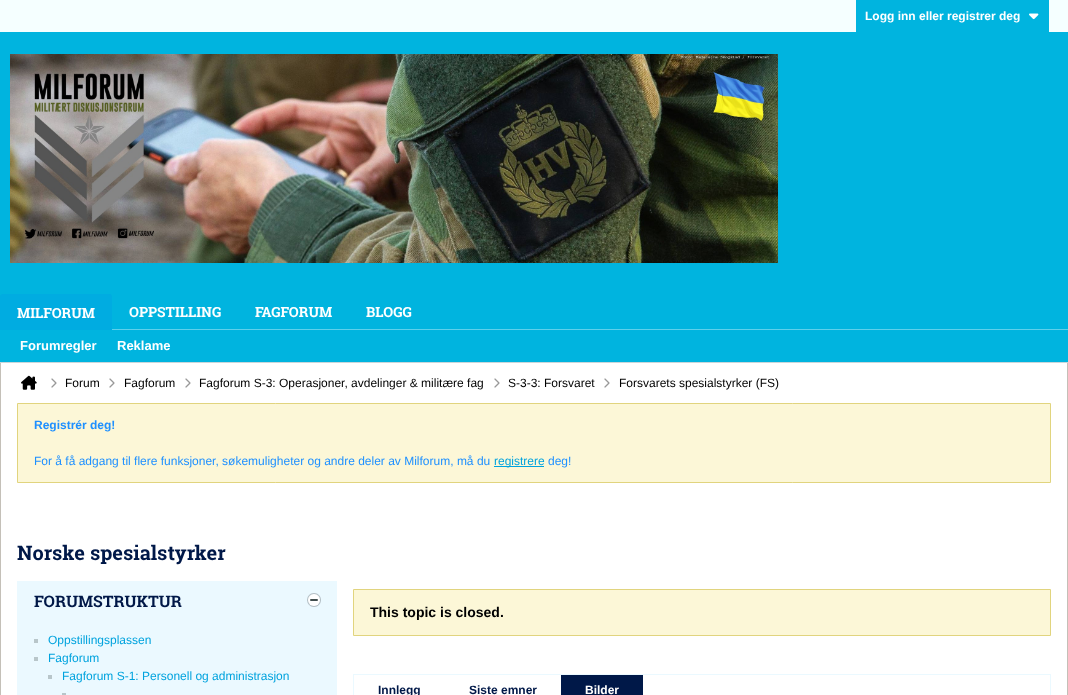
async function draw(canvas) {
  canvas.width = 1068;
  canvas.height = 695;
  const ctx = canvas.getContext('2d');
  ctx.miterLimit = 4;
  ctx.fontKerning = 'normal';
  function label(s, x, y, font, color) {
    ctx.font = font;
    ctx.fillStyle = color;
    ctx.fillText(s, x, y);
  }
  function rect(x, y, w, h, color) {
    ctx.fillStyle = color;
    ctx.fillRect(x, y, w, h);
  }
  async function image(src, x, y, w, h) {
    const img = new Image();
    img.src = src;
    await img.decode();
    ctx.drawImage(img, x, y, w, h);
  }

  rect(0, 0, 1068, 695, '#00b4df');
  rect(0, 0, 1068, 32, '#f5ffff');
  rect(856, 0, 193, 32, '#00b4df');
  label('Logg inn eller registrer deg', 865, 20, 'bold 12px Liberation Sans', '#fff');
  await image('assets/img1.png', 1029, 13, 10, 7);
  await image('assets/img2.png', 10, 54, 768, 209);
  rect(112, 329, 956, 1, '#5ed0eb');
  ctx.fillStyle = '#00ace1';
  ctx.beginPath();
  ctx.roundRect(0, 294, 112, 36, [3, 3, 0, 0]);
  ctx.fill();
  rect(110, 294, 1, 1, '#00ace1');
  label('MILFORUM', 17, 318, 'bold 14px Roboto Slab', '#fff');
  label('OPPSTILLING', 129, 317, 'bold 14px Roboto Slab', '#fff');
  label('FAGFORUM', 255, 317, 'bold 14px Roboto Slab', '#fff');
  label('BLOGG', 366, 317, 'bold 14px Roboto Slab', '#fff');
  rect(0, 362, 1068, 1, '#c9d6da');
  label('Forumregler', 20, 350, 'bold 13px Liberation Sans', '#fff');
  label('Reklame', 117, 350, 'bold 13px Liberation Sans', '#fff');
  rect(1, 363, 1066, 332, '#fff');
  rect(1067, 363, 1, 332, '#c4c0b8');
  rect(0, 363, 1, 332, '#c4c0b8');
  await image('assets/img3.png', 21, 375, 16, 15);
  await image('assets/img4.png', 51, 378, 6, 10);
  label('Forum', 65, 387, '12px Liberation Sans', '#000');
  await image('assets/img4.png', 109, 378, 6, 10);
  label('Fagforum', 124, 387, '12px Liberation Sans', '#000');
  await image('assets/img4.png', 185, 378, 6, 10);
  label('Fagforum S-3: Operasjoner, avdelinger & militære fag', 199, 387, '12px Liberation Sans', '#000');
  await image('assets/img4.png', 494, 378, 6, 10);
  label('S-3-3: Forsvaret', 508, 387, '12px Liberation Sans', '#000');
  await image('assets/img4.png', 604, 378, 6, 10);
  label('Forsvarets spesialstyrker (FS)', 619, 387, '12px Liberation Sans', '#000');
  ctx.fillStyle = '#fcf7d7';
  ctx.beginPath();
  ctx.rect(17.5, 403.5, 1033, 79);
  ctx.fill();
  ctx.strokeStyle = '#e1d47e';
  ctx.stroke();
  label('Registrér deg!', 34, 429, 'bold 12px Liberation Sans', '#1e90ff');
  label('For å få adgang til flere funksjoner, søkemuligheter og andre deler av Milforum, må du', 34, 465, '12px Liberation Sans', '#1e90ff');
  rect(494, 466, 50, 1, '#00a3de');
  label('registrere', 494, 465, '12px Liberation Sans', '#00a3de');
  label('deg!', 548, 465, '12px Liberation Sans', '#1e90ff');
  label('Norske spesialstyrker', 17, 560, 'bold 20px Roboto Slab', '#001848');
  rect(17, 581, 320, 114, '#ebf9ff');
  label('FORUMSTRUKTUR', 34, 607, 'bold 16px Roboto Slab', '#001848');
  await image('assets/img5.png', 307, 593, 14, 14);
  rect(34, 639, 4, 4, '#b8c6ca');
  label('Oppstillingsplassen', 48, 644, '12px Liberation Sans', '#00a3de');
  rect(34, 657, 4, 4, '#b8c6ca');
  label('Fagforum', 48, 662, '12px Liberation Sans', '#00a3de');
  rect(48, 675, 4, 4, '#b8c6ca');
  label('Fagforum S-1: Personell og administrasjon', 62, 680, '12px Liberation Sans', '#00a3de');
  rect(62, 693, 4, 2, '#b8c6ca');
  ctx.fillStyle = '#fcf7d7';
  ctx.beginPath();
  ctx.rect(353.5, 589.5, 697, 46);
  ctx.fill();
  ctx.stroke();
  label('This topic is closed.', 370, 617, 'bold 14px Liberation Sans', '#000');
  ctx.strokeStyle = '#ebf9ff';
  ctx.strokeRect(353.5, 674.5, 697, 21);
  label('Innlegg', 378, 694, 'bold 12px Liberation Sans', '#001848');
  label('Siste emner', 469, 694, 'bold 12px Liberation Sans', '#001848');
  rect(561, 675, 82, 20, '#001848');
  label('Bilder', 585, 694, 'bold 12px Liberation Sans', '#fff');
}

draw(document.querySelector('canvas'));
